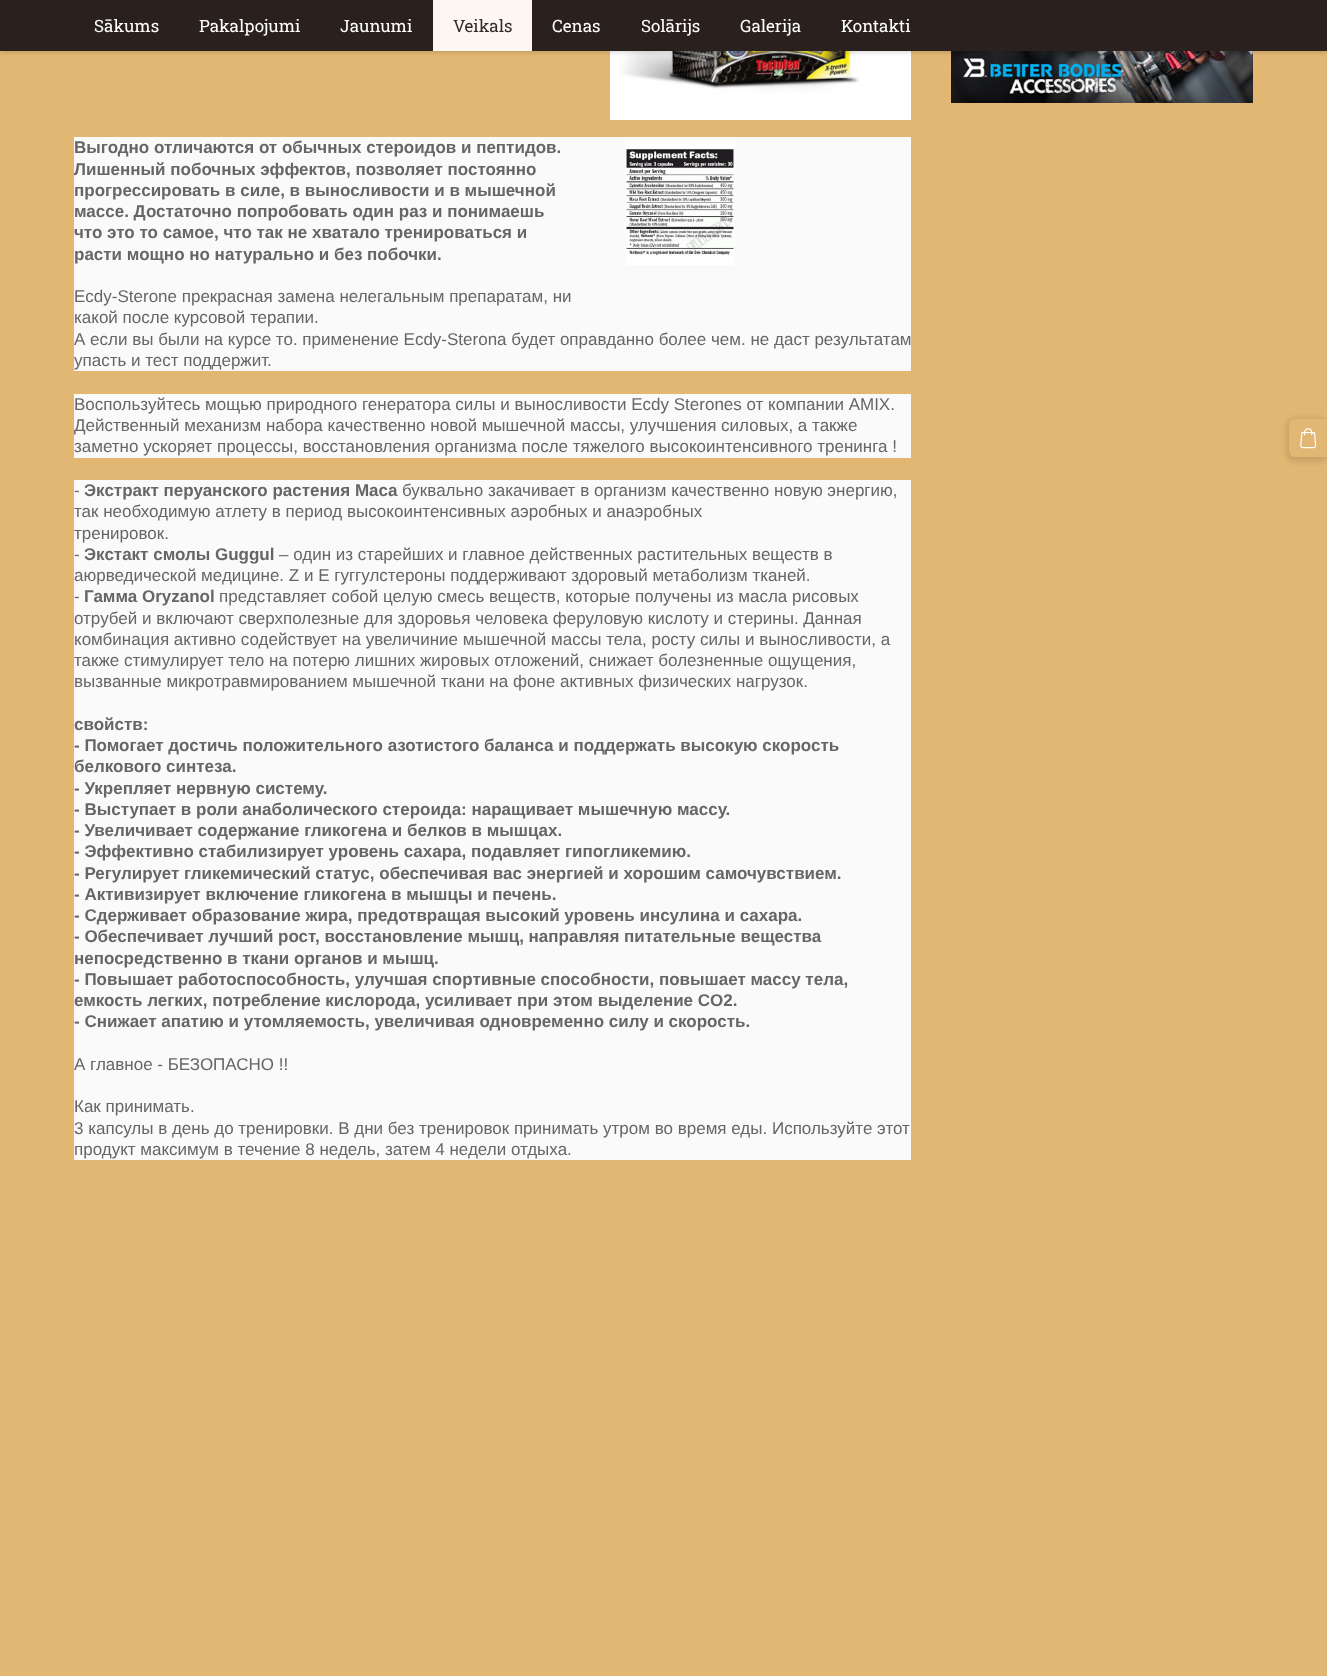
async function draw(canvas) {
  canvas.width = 1327;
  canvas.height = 1676;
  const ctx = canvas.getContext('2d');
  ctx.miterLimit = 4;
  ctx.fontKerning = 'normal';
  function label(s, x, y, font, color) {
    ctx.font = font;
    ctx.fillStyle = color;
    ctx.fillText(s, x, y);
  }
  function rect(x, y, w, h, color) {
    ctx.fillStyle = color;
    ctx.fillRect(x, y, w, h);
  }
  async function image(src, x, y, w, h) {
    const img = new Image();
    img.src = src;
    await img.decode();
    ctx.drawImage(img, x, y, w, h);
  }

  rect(0, 0, 1327, 1676, '#e2b673');
  await image('assets/img1.png', 951, 51, 302, 52);
  await image('assets/img2.png', 610, 51, 301, 69);
  ctx.fillStyle = '#0000002b';
  ctx.filter = 'blur(2.5px)';
  ctx.beginPath();
  ctx.rect(0, 1, 1327, 51);
  ctx.fill();
  ctx.filter = 'none';
  rect(0, 0, 1327, 51, '#2a211e');
  label('Sākums', 94, 32, '17px Roboto Slab', '#fff');
  label('Pakalpojumi', 199, 32, '17px Roboto Slab', '#fff');
  label('Jaunumi', 340, 32, '17px Roboto Slab', '#fff');
  rect(433, 0, 99, 51, '#fcf7f1');
  label('Veikals', 453, 32, '17px Roboto Slab', '#362b26');
  label('Cenas', 552, 32, '17px Roboto Slab', '#fff');
  label('Solārijs', 641, 32, '17px Roboto Slab', '#fff');
  label('Galerija', 740, 32, '17px Roboto Slab', '#fff');
  label('Kontakti', 841, 32, '17px Roboto Slab', '#fff');
  rect(74, 137, 837, 234, '#fafafa');
  await image('assets/img3.png', 625, 140, 110, 125);
  label('Выгодно отличаются от обычных стероидов и пептидов.', 74, 153, 'bold 17px Liberation Sans', '#666');
  label('Лишенный побочных эффектов, позволяет постоянно', 74, 175, 'bold 17px Liberation Sans', '#666');
  label('прогрессировать в силе, в выносливости и в мышечной', 74, 196, 'bold 17px Liberation Sans', '#666');
  label('массе. Достаточно попробовать один раз и понимаешь', 74, 217, 'bold 17px Liberation Sans', '#666');
  label('что это то самое, что так не хватало тренироваться и', 74, 238, 'bold 17px Liberation Sans', '#666');
  label('расти мощно но натурально и без побочки.', 74, 260, 'bold 17px Liberation Sans', '#666');
  label('Ecdy-Sterone прекрасная замена нелегальным препаратам, ни', 74, 302, '17px Liberation Sans', '#666');
  label('какой после курсовой терапии.', 74, 323, '17px Liberation Sans', '#666');
  label('А если вы были на курсе то. применение Ecdy-Steronа будет оправданно более чем. не даст результатам', 74, 345, '17px Liberation Sans', '#666');
  label('упасть и тест поддержит.', 74, 366, '17px Liberation Sans', '#666');
  rect(74, 394, 837, 64, '#fafafa');
  label('Воспользуйтесь мощью природного генератора силы и выносливости Ecdy Sterones от компании AMIX.', 74, 410, '17px Liberation Sans', '#666');
  label('Действенный механизм набора качественно новой мышечной массы, улучшения силовых, а также', 74, 431, '17px Liberation Sans', '#666');
  label('заметно ускоряет процессы, восстановления организма после тяжелого высокоинтенсивного тренинга !', 74, 452, '17px Liberation Sans', '#666');
  rect(74, 480, 837, 680, '#fafafa');
  label('-', 74, 496, '17px Liberation Sans', '#666');
  label('Экстракт перуанского растения Maca', 84, 496, 'bold 17px Liberation Sans', '#666');
  label('буквально закачивает в организм качественно новую энергию,', 402, 496, '17px Liberation Sans', '#666');
  label('так необходимую атлету в период высокоинтенсивных аэробных и анаэробных', 74, 517, '17px Liberation Sans', '#666');
  label('тренировок.', 74, 539, '17px Liberation Sans', '#666');
  label('-', 74, 560, '17px Liberation Sans', '#666');
  label('Экстакт смолы Guggul', 84, 560, 'bold 17px Liberation Sans', '#666');
  label('– один из старейших и главное действенных растительных веществ в', 279, 560, '17px Liberation Sans', '#666');
  label('аюрведической медицине. Z и E гуггулстероны поддерживают здоровый метаболизм тканей.', 74, 581, '17px Liberation Sans', '#666');
  label('-', 74, 602, '17px Liberation Sans', '#666');
  label('Гамма Oryzanol', 84, 602, 'bold 17px Liberation Sans', '#666');
  label('представляет собой целую смесь веществ, которые получены из масла рисовых', 219, 602, '17px Liberation Sans', '#666');
  label('отрубей и включают сверхполезные для здоровья человека феруловую кислоту и стерины. Данная', 74, 624, '17px Liberation Sans', '#666');
  label('комбинация активно содействует на увеличиние мышечной массы тела, росту силы и выносливости, а', 74, 645, '17px Liberation Sans', '#666');
  label('также стимулирует тело на потерю лишних жировых отложений, снижает болезненные ощущения,', 74, 666, '17px Liberation Sans', '#666');
  label('вызванные микротравмированием мышечной ткани на фоне активных физических нагрузок.', 74, 687, '17px Liberation Sans', '#666');
  label('свойств:', 74, 730, 'bold 17px Liberation Sans', '#666');
  label('- Помогает достичь положительного азотистого баланса и поддержать высокую скорость', 74, 751, 'bold 17px Liberation Sans', '#666');
  label('белкового синтеза.', 74, 772, 'bold 17px Liberation Sans', '#666');
  label('- Укрепляет нервную систему.', 74, 794, 'bold 17px Liberation Sans', '#666');
  label('- Выступает в роли анаболического стероида: наращивает мышечную массу.', 74, 815, 'bold 17px Liberation Sans', '#666');
  label('- Увеличивает содержание гликогена и белков в мышцах.', 74, 836, 'bold 17px Liberation Sans', '#666');
  label('- Эффективно стабилизирует уровень сахара, подавляет гипогликемию.', 74, 857, 'bold 17px Liberation Sans', '#666');
  label('- Регулирует гликемический статус, обеспечивая вас энергией и хорошим самочувствием.', 74, 879, 'bold 17px Liberation Sans', '#666');
  label('- Активизирует включение гликогена в мышцы и печень.', 74, 900, 'bold 17px Liberation Sans', '#666');
  label('- Сдерживает образование жира, предотвращая высокий уровень инсулина и сахара.', 74, 921, 'bold 17px Liberation Sans', '#666');
  label('- Обеспечивает лучший рост, восстановление мышц, направляя питательные вещества', 74, 942, 'bold 17px Liberation Sans', '#666');
  label('непосредственно в ткани органов и мышц.', 74, 964, 'bold 17px Liberation Sans', '#666');
  label('- Повышает работоспособность, улучшая спортивные способности, повышает массу тела,', 74, 985, 'bold 17px Liberation Sans', '#666');
  label('емкость легких, потребление кислорода, усиливает при этом выделение CO2.', 74, 1006, 'bold 17px Liberation Sans', '#666');
  label('- Снижает апатию и утомляемость, увеличивая одновременно силу и скорость.', 74, 1027, 'bold 17px Liberation Sans', '#666');
  label('А главное - БЕЗОПАСНО !!', 74, 1070, '17px Liberation Sans', '#666');
  label('Как принимать.', 74, 1112, '17px Liberation Sans', '#666');
  label('3 капсулы в день до тренировки. В дни без тренировок принимать утром во время еды. Используйте этот', 74, 1134, '17px Liberation Sans', '#666');
  label('продукт максимум в течение 8 недель, затем 4 недели отдыха.', 74, 1155, '17px Liberation Sans', '#666');
  ctx.fillStyle = '#0000001a';
  ctx.filter = 'blur(2.5px)';
  ctx.beginPath();
  ctx.roundRect(1286, 418, 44, 44, 9);
  ctx.fill();
  ctx.filter = 'none';
  ctx.fillStyle = '#e2b673';
  ctx.beginPath();
  ctx.roundRect(1289, 419, 38, 38, [6, 0, 0, 6]);
  ctx.fill();
  await image('assets/img4.png', 1300, 428, 17, 21);
}

draw(document.querySelector('canvas'));
